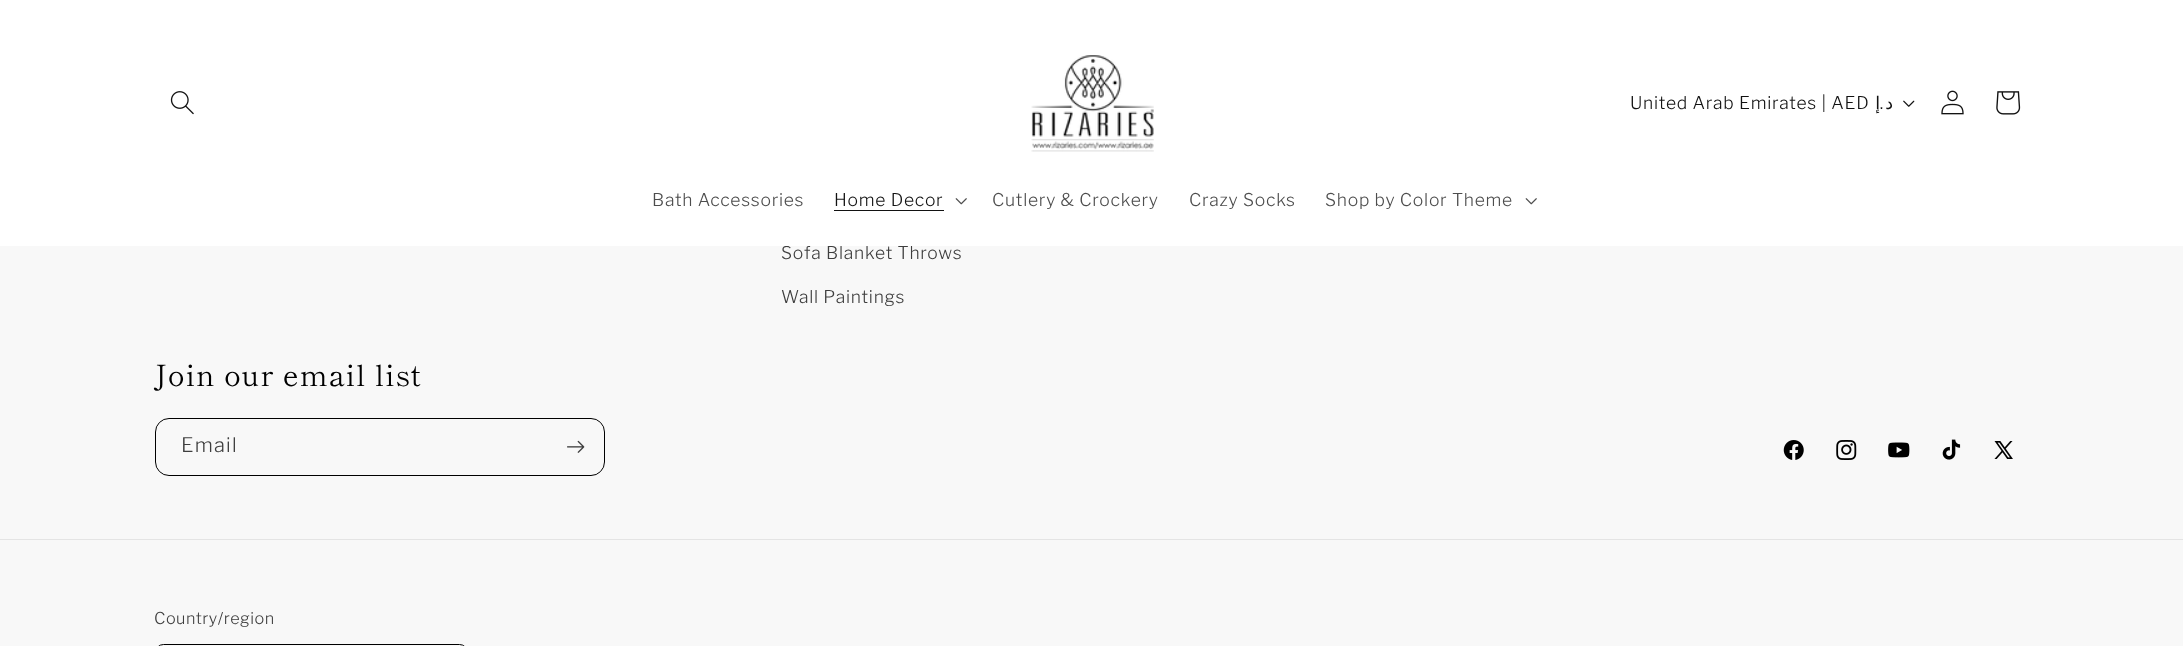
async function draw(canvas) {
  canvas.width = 2183;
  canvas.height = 646;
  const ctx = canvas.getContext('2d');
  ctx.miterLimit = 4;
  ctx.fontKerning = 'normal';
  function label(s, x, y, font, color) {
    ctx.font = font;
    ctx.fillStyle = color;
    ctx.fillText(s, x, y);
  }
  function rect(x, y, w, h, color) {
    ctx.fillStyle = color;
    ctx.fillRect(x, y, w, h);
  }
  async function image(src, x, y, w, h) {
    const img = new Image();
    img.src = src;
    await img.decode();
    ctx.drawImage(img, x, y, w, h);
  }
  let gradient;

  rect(0, 0, 2183, 646, '#f8f8f8');
  ctx.letterSpacing = '0.75px';
  label('Sofa Blanket Throws', 781, 259, '300 17.5px Libre Franklin', '#3e3e3e');
  gradient = ctx.createRadialGradient(1092, 1091.27, 0, 1092, 1091.27, 1544);
  gradient.addColorStop(0, '#fff');
  gradient.addColorStop(1, '#fff');
  gradient.addColorStop(1, '#ff8ca2');
  ctx.fillStyle = gradient;
  ctx.beginPath();
  ctx.rect(0, 0, 2183, 246);
  ctx.save();
  ctx.clip();
  ctx.scale(1, 457 / 1544);
  ctx.fillRect(0, 0, 2183, 2183);
  ctx.restore();
  await image('assets/img1.png', 170, 91, 24, 24);
  await image('assets/img2.png', 1031, 55, 123, 97);
  label('United Arab Emirates | AED', 1630, 109, '300 17.5px Libre Franklin', '#121212');
  ctx.direction = 'rtl';
  label('إ', 1880, 109, '17.5px DejaVu Sans', '#121212');
  label('.', 1884, 109, '300 17.5px Libre Franklin', '#121212');
  label('د', 1893, 109, '17.5px DejaVu Sans', '#121212');
  await image('assets/img3.png', 1903, 100, 12, 7);
  await image('assets/img4.png', 1941, 90, 23, 25);
  await image('assets/img5.png', 1996, 91, 25, 24);
  ctx.direction = 'ltr';
  label('Bath Accessories', 652, 206, '300 17.5px Libre Franklin', '#4d4d4d');
  label('Home Decor', 834, 206, '300 17.5px Libre Franklin', '#121212');
  rect(834, 210, 110, 1, '#121212');
  await image('assets/img6.png', 955, 198, 12, 7);
  label('Cutlery & Crockery', 992, 206, '300 17.5px Libre Franklin', '#4d4d4d');
  label('Crazy Socks', 1189, 206, '300 17.5px Libre Franklin', '#4d4d4d');
  label('Shop by Color Theme', 1325, 206, '300 17.5px Libre Franklin', '#4d4d4d');
  await image('assets/img6.png', 1525, 198, 12, 7);
  label('Wall Paintings', 781, 303, '300 17.5px Libre Franklin', '#3e3e3e');
  ctx.letterSpacing = '1px';
  label('Join our email list', 154, 386, '29.25px Shippori Mincho', '#000');
  ctx.beginPath();
  ctx.roundRect(155.5, 418.5, 449, 57, 13.5);
  ctx.strokeStyle = '#000';
  ctx.stroke();
  ctx.letterSpacing = '1.25px';
  label('Email', 181, 452, '300 20px Libre Franklin', '#3e3e3e');
  await image('assets/img7.png', 567, 440, 18, 13);
  await image('assets/img8.png', 1783, 440, 21, 20);
  await image('assets/img9.png', 1836, 440, 21, 20);
  await image('assets/img10.png', 1888, 442, 22, 16);
  await image('assets/img11.png', 1942, 439, 19, 21);
  await image('assets/img12.png', 1994, 441, 19, 18);
  rect(0, 539, 2183, 1, '#e4e4e4');
  ctx.letterSpacing = '0.5px';
  label('Country/region', 154, 624, '300 16.25px Libre Franklin', '#3e3e3e');
  ctx.beginPath();
  ctx.roundRect(155.5, 644.5, 312, 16, 13.5);
  ctx.stroke();
}

draw(document.querySelector('canvas'));
